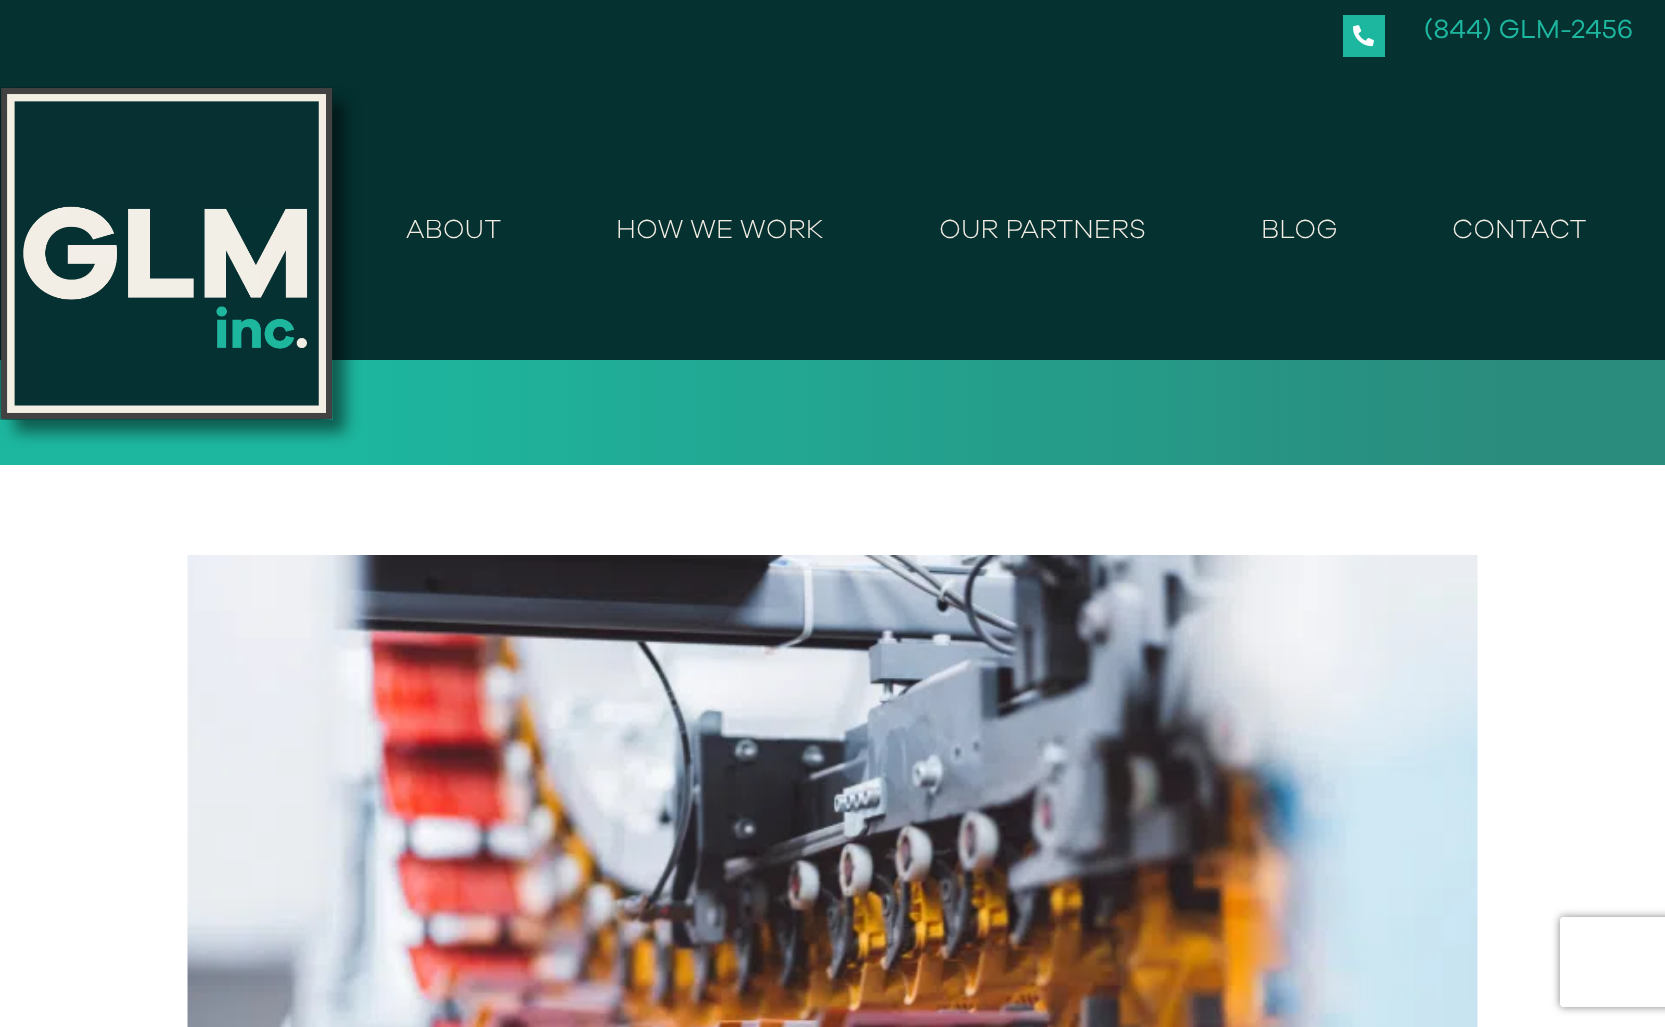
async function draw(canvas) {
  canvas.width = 1665;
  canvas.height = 1027;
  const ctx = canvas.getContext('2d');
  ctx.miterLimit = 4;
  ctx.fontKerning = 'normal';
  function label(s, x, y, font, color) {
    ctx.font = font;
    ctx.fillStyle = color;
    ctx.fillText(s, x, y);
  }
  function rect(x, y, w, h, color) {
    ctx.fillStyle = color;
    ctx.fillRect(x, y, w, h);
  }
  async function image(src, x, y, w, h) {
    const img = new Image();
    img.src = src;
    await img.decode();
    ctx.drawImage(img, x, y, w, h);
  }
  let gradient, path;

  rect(0, 0, 1665, 1027, '#fff');
  rect(0, 0, 1665, 360, '#053131');
  rect(1343, 15, 42, 42, '#1db79f');
  await image('assets/img1.png', 1353, 25, 21, 22);
  label('(844) GLM-2456', 1424, 38, '27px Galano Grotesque', '#1db79f');
  gradient = ctx.createLinearGradient(0, 413, 1665, 412);
  gradient.addColorStop(0.2, '#1db79f');
  gradient.addColorStop(0.9, '#2a8c7d');
  ctx.fillStyle = gradient;
  ctx.fillRect(0, 360, 1665, 105);
  ctx.save();
  path = new Path2D('M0 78H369V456H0ZM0 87H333V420H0Z');
  ctx.clip(path, 'evenodd');
  ctx.fillStyle = '#00000080';
  ctx.filter = 'blur(7.5px)';
  ctx.beginPath();
  ctx.rect(15, 102, 330, 330);
  ctx.fill();
  ctx.filter = 'none';
  ctx.restore();
  await image('assets/img2.png', 0, 87, 333, 333);
  label('ABOUT', 406, 238, '300 27px Galano Grotesque', '#f4eee4');
  label('HOW WE WORK', 616, 238, '300 27px Galano Grotesque', '#f4eee4');
  label('OUR PARTNERS', 939, 238, '300 27px Galano Grotesque', '#f4eee4');
  label('BLOG', 1261, 238, '300 27px Galano Grotesque', '#f4eee4');
  label('CONTACT', 1452, 238, '300 27px Galano Grotesque', '#f4eee4');
  await image('assets/img3.png', 187, 555, 1291, 472);
  ctx.save();
  path = new Path2D('M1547 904H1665V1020H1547ZM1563 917H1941C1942.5 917 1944 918.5 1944 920V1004C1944 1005.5 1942.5 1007 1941 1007H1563C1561.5 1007 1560 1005.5 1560 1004V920C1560 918.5 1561.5 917 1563 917Z');
  ctx.clip(path, 'evenodd');
  ctx.fillStyle = '#808080';
  ctx.filter = 'blur(4px)';
  ctx.beginPath();
  ctx.roundRect(1560, 917, 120, 90, 3);
  ctx.fill();
  ctx.filter = 'none';
  ctx.restore();
}

draw(document.querySelector('canvas'));
